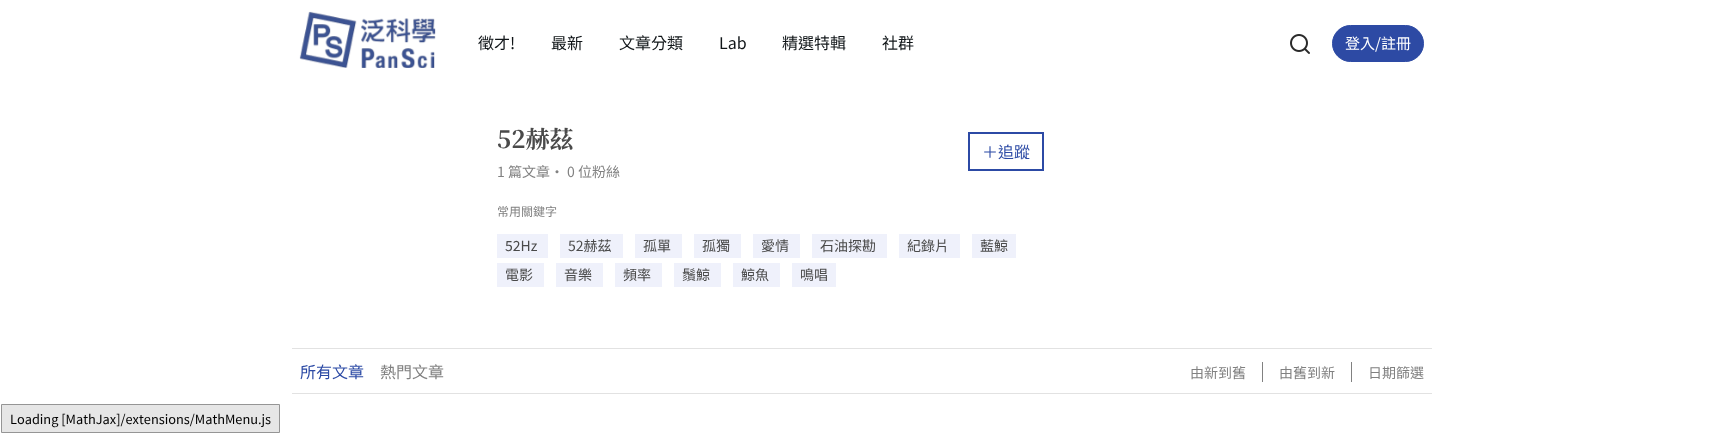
async function draw(canvas) {
  canvas.width = 1723;
  canvas.height = 435;
  const ctx = canvas.getContext('2d');
  ctx.miterLimit = 4;
  ctx.fontKerning = 'none';
  function label(s, x, y, font, color) {
    ctx.font = font;
    ctx.fillStyle = color;
    ctx.fillText(s, x, y);
  }
  function rect(x, y, w, h, color) {
    ctx.fillStyle = color;
    ctx.fillRect(x, y, w, h);
  }
  async function image(src, x, y, w, h) {
    const img = new Image();
    img.src = src;
    await img.decode();
    ctx.drawImage(img, x, y, w, h);
  }

  rect(0, 0, 1723, 435, '#fff');
  await image('assets/img1.png', 299, 11, 137, 57);
  label('徵才!', 478, 49, '100 16px Noto Sans TC', '#101518');
  label('最新', 551, 49, '100 16px Noto Sans TC', '#101518');
  label('文章分類', 619, 49, '100 16px Noto Sans TC', '#101518');
  label('Lab', 719, 49, '100 16px Noto Sans TC', '#101518');
  label('精選特輯', 782, 49, '100 16px Noto Sans TC', '#101518');
  label('社群', 882, 49, '100 16px Noto Sans TC', '#101518');
  await image('assets/img2.png', 1290, 34, 20, 20);
  ctx.fillStyle = '#2d4aa4';
  ctx.beginPath();
  ctx.roundRect(1332.5, 25.5, 91, 36, 18);
  ctx.fill();
  ctx.strokeStyle = '#2d4aa4';
  ctx.stroke();
  label('登入/註冊', 1345, 49, '100 15px Noto Sans TC', '#fff');
  label('52赫茲', 497, 148, 'bold 24px Noto Serif TC', '#4a4a4a');
  ctx.strokeStyle = '#2c4aa5';
  ctx.lineWidth = 2;
  ctx.strokeRect(969, 133, 74, 37);
  label('＋追蹤', 982, 158, '100 16px Noto Sans TC', '#2c4aa5');
  label('1 篇文章・ 0 位粉絲', 497, 177, '100 14px Noto Sans TC', '#818181');
  label('常用關鍵字', 497, 216, '100 12px Noto Sans TC', '#818181');
  rect(497, 234, 51, 24, '#eff1fb');
  label('52Hz', 505, 251, '100 14px Noto Sans TC', '#4a4a4a');
  rect(560, 234, 63, 24, '#eff1fb');
  label('52赫茲', 568, 251, '100 14px Noto Sans TC', '#4a4a4a');
  rect(635, 234, 47, 24, '#eff1fb');
  label('孤單', 643, 251, '100 14px Noto Sans TC', '#4a4a4a');
  rect(694, 234, 47, 24, '#eff1fb');
  label('孤獨', 702, 251, '100 14px Noto Sans TC', '#4a4a4a');
  rect(753, 234, 47, 24, '#eff1fb');
  label('愛情', 761, 251, '100 14px Noto Sans TC', '#4a4a4a');
  rect(812, 234, 75, 24, '#eff1fb');
  label('石油探勘', 820, 251, '100 14px Noto Sans TC', '#4a4a4a');
  rect(899, 234, 61, 24, '#eff1fb');
  label('紀錄片', 907, 251, '100 14px Noto Sans TC', '#4a4a4a');
  rect(972, 234, 44, 24, '#eff1fb');
  label('藍鯨', 980, 251, '100 14px Noto Sans TC', '#4a4a4a');
  rect(497, 263, 47, 24, '#eff1fb');
  label('電影', 505, 280, '100 14px Noto Sans TC', '#4a4a4a');
  rect(556, 263, 47, 24, '#eff1fb');
  label('音樂', 564, 280, '100 14px Noto Sans TC', '#4a4a4a');
  rect(615, 263, 47, 24, '#eff1fb');
  label('頻率', 623, 280, '100 14px Noto Sans TC', '#4a4a4a');
  rect(674, 263, 47, 24, '#eff1fb');
  label('鬚鯨', 682, 280, '100 14px Noto Sans TC', '#4a4a4a');
  rect(733, 263, 47, 24, '#eff1fb');
  label('鯨魚', 741, 280, '100 14px Noto Sans TC', '#4a4a4a');
  rect(792, 263, 44, 24, '#eff1fb');
  label('鳴唱', 800, 280, '100 14px Noto Sans TC', '#4a4a4a');
  rect(292, 348, 1140, 1, '#e2e2e2');
  rect(292, 393, 1140, 1, '#e2e2e2');
  label('所有文章', 300, 378, '100 16px Noto Sans TC', '#2c4aa5');
  label('熱門文章', 380, 378, '100 16px Noto Sans TC', '#818181');
  label('由新到舊', 1190, 378, '100 14px Noto Sans TC', '#818181');
  rect(1262, 362, 1, 20, '#818181');
  label('由舊到新', 1279, 378, '100 14px Noto Sans TC', '#818181');
  rect(1351, 362, 1, 20, '#818181');
  label('日期篩選', 1368, 378, '100 14px Noto Sans TC', '#818181');
  ctx.fillStyle = '#e6e6e6';
  ctx.beginPath();
  ctx.rect(1.5, 404.5, 278, 28);
  ctx.fill();
  ctx.strokeStyle = '#959595';
  ctx.lineWidth = 1;
  ctx.stroke();
  label('Loading [MathJax]/extensions/MathMenu.js', 10, 424, '100 12.8px Noto Sans TC', '#000');
}

draw(document.querySelector('canvas'));
